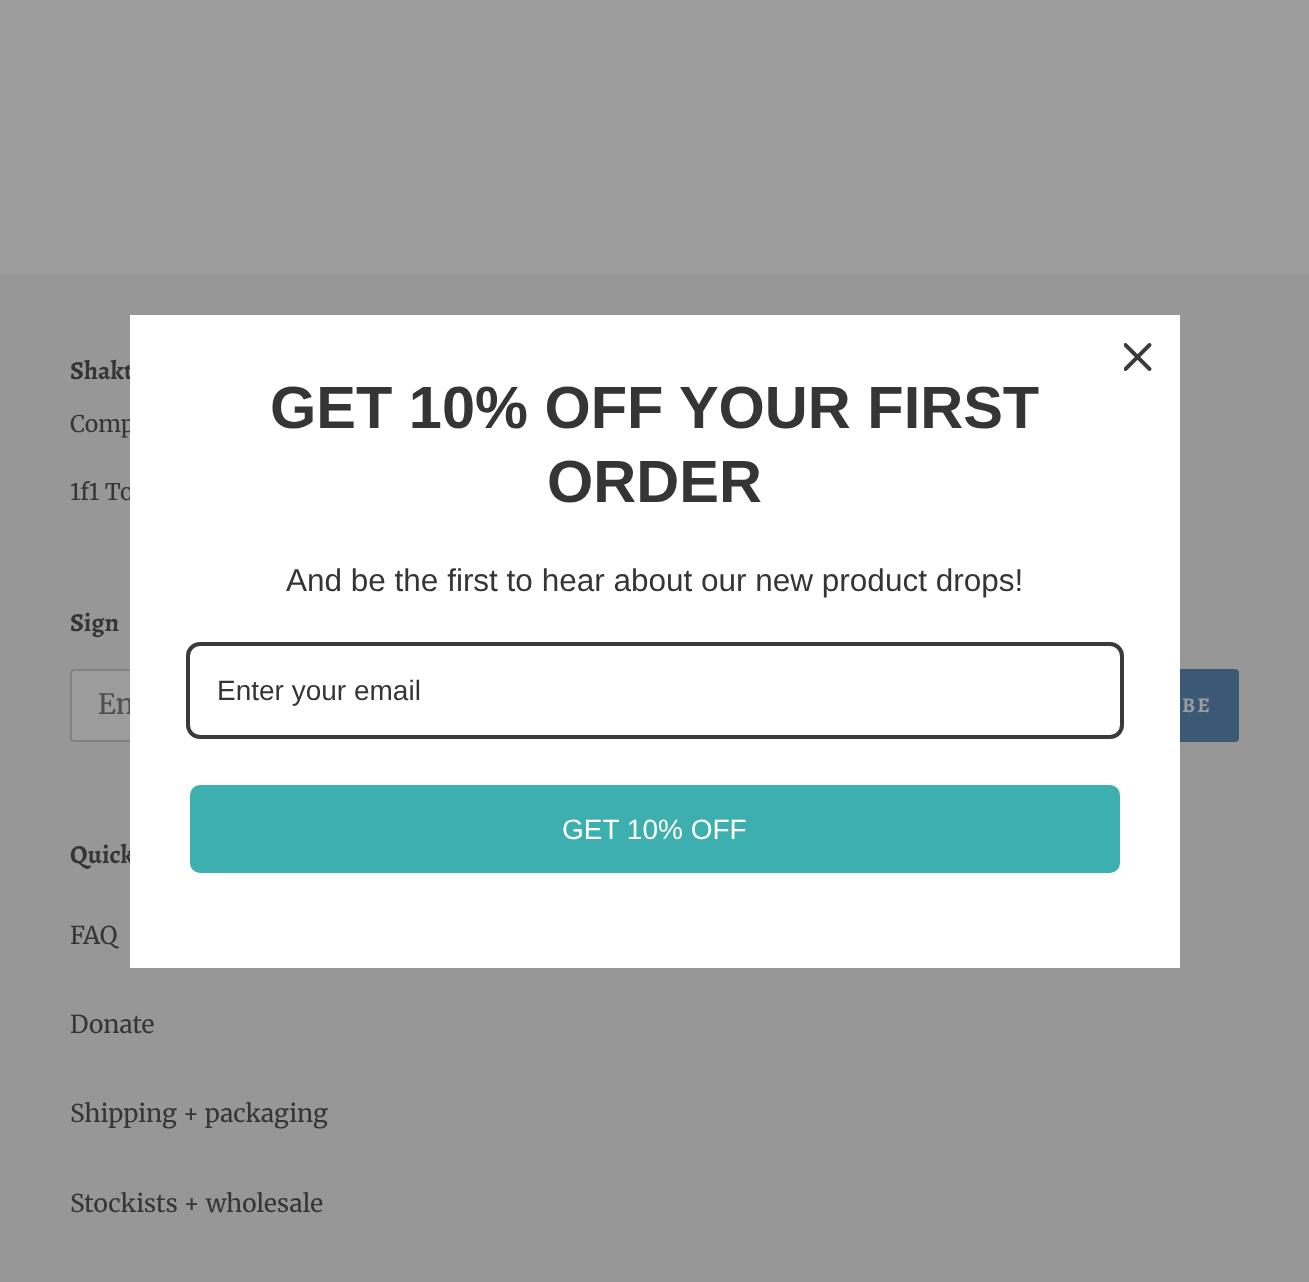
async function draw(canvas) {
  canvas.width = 1309;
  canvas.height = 1282;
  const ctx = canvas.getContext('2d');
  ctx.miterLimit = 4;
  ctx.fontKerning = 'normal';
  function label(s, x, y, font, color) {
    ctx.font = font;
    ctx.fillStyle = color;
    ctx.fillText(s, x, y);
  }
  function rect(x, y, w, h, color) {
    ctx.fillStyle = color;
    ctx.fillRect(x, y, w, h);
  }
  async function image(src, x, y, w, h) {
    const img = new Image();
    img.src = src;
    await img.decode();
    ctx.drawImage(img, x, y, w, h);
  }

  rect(0, 0, 1309, 1282, '#9c9c9c');
  rect(0, 275, 1309, 1007, '#979797');
  label('Shakt', 70, 379, 'bold 26px Alegreya', '#363535');
  label('Comp', 70, 432, '23px Merriweather', '#363535');
  label('1f1 To', 70, 500, '23px Merriweather', '#363535');
  label('Sign', 70, 631, 'bold 26px Alegreya', '#363535');
  ctx.fillStyle = '#9c9c9c';
  ctx.beginPath();
  ctx.roundRect(71, 670, 987, 71, [3, 0, 0, 3]);
  ctx.fill();
  ctx.strokeStyle = '#828282';
  ctx.lineWidth = 2;
  ctx.stroke();
  label('Em', 98, 714, '28px Merriweather', '#4f4f4f');
  ctx.fillStyle = '#3b5974';
  ctx.beginPath();
  ctx.roundRect(1059, 669, 180, 73, [0, 4, 4, 0]);
  ctx.fill();
  ctx.letterSpacing = '2px';
  label('BE', 1182, 712, 'bold 21px Alegreya', '#9c9c9c');
  ctx.letterSpacing = '0px';
  label('Quick', 70, 863, 'bold 26px Alegreya', '#363535');
  label('FAQ', 70, 944, '24.5px Merriweather', '#363535');
  label('Donate', 70, 1033, '24.5px Merriweather', '#363535');
  label('Shipping + packaging', 70, 1122, '24.5px Merriweather', '#363535');
  label('Stockists + wholesale', 70, 1212, '24.5px Merriweather', '#363535');
  rect(130, 315, 1050, 653, '#fff');
  await image('assets/img1.png', 1124, 343, 28, 28);
  label('GET 10% OFF YOUR FIRST', 270, 428, 'bold 59.5px Liberation Sans', '#363535');
  label('ORDER', 547, 502, 'bold 59.5px Liberation Sans', '#363535');
  label('And be the first to hear about our new product drops!', 286, 591, '31.5px Liberation Sans', '#363535');
  ctx.beginPath();
  ctx.roundRect(188, 644, 934, 93, 12);
  ctx.strokeStyle = '#3a3a3a';
  ctx.lineWidth = 4;
  ctx.stroke();
  label('Enter your email', 217, 700, '28px Liberation Sans', '#363535');
  ctx.fillStyle = '#3dafaf';
  ctx.beginPath();
  ctx.roundRect(188, 783, 934, 92, 12);
  ctx.fill();
  ctx.strokeStyle = '#fff';
  ctx.stroke();
  label('GET 10% OFF', 562, 839, '28px Liberation Sans', '#fff');
}

draw(document.querySelector('canvas'));
